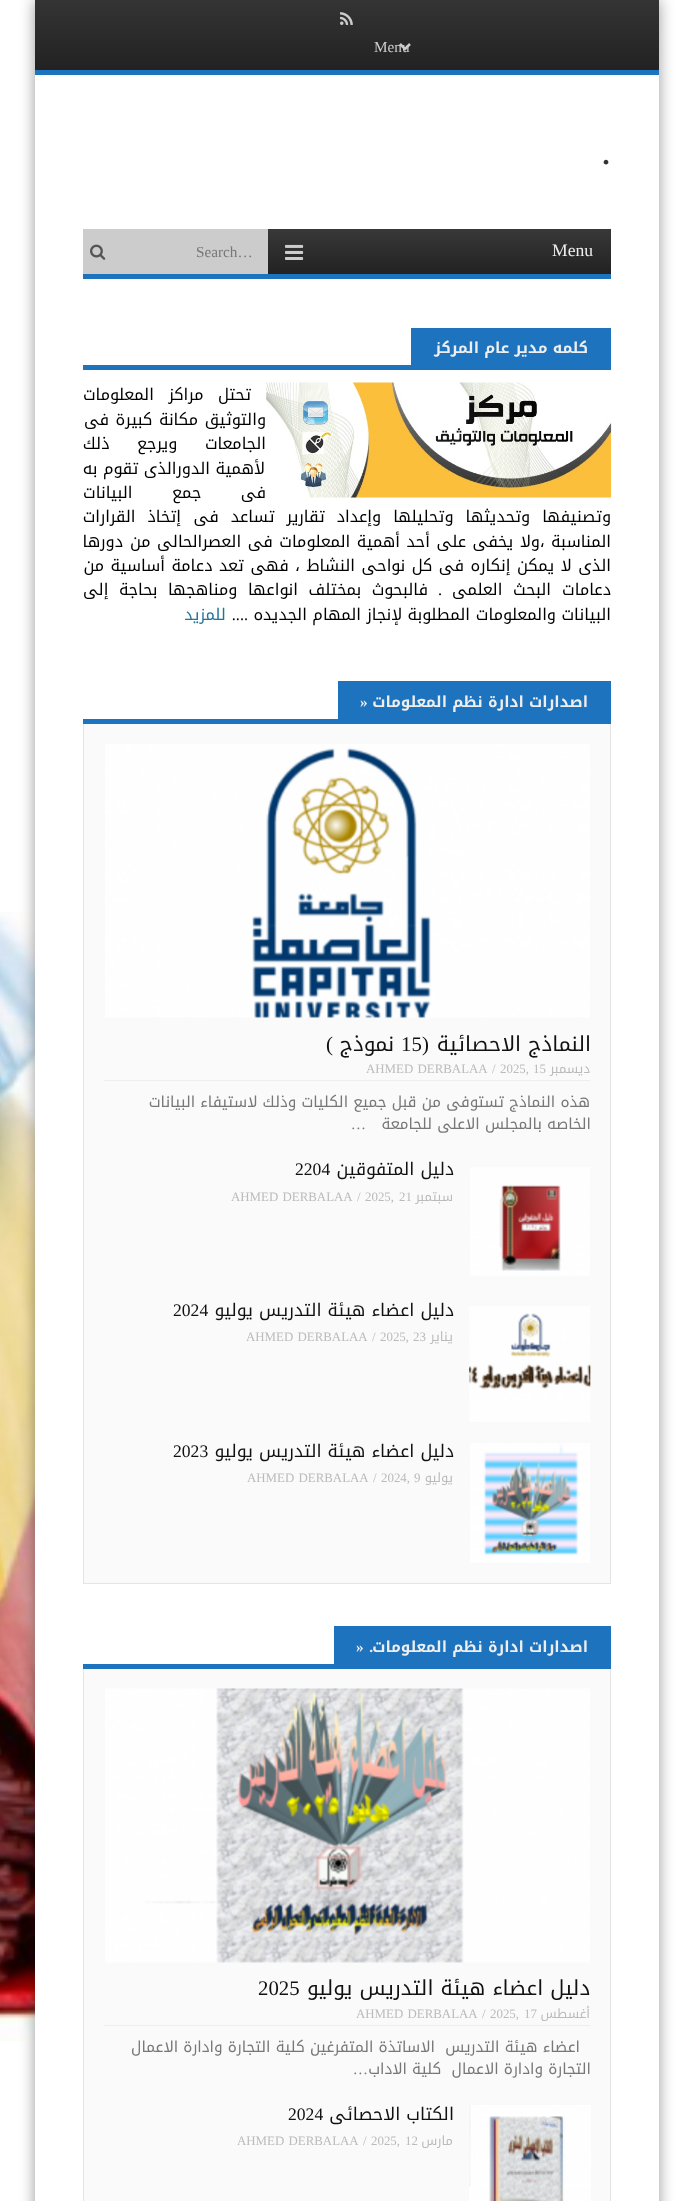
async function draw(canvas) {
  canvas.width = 693;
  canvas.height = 2201;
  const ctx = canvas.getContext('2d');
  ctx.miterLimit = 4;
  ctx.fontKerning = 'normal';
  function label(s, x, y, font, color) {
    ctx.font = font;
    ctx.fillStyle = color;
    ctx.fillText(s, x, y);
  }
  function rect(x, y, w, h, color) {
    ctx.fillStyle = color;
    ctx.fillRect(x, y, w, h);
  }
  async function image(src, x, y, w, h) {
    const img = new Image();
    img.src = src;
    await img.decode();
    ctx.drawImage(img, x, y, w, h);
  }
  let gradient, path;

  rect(0, 0, 693, 2201, '#fff');
  await image('assets/img11.png', 0, 912, 35, 1129);
  ctx.fillStyle = '#00000066';
  ctx.filter = 'blur(7.5px)';
  ctx.beginPath();
  ctx.rect(35, 0, 624, 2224);
  ctx.fill();
  ctx.filter = 'none';
  rect(35, 75, 624, 2126, '#fff');
  gradient = ctx.createLinearGradient(347, 0, 347, 70);
  gradient.addColorStop(0, '#343434');
  gradient.addColorStop(1, '#222');
  ctx.fillStyle = gradient;
  ctx.fillRect(35, 0, 624, 70);
  rect(35, 70, 624, 5, '#1e73be');
  await image('assets/img1.png', 340, 12, 13, 13);
  path = new Path2D('M400 44L405 49L410 44');
  ctx.strokeStyle = '#ccc';
  ctx.lineWidth = 2.5;
  ctx.stroke(path);
  label('Menu', 374, 52, '15.25px Liberation Serif', '#ccc');
  label('.', 601, 164, '40px Liberation Serif', '#333');
  rect(83, 274, 528, 5, '#1e73be');
  gradient = ctx.createLinearGradient(439, 229, 439, 274);
  gradient.addColorStop(0, '#383838');
  gradient.addColorStop(1, '#222');
  ctx.fillStyle = gradient;
  ctx.fillRect(268, 229, 343, 45);
  label('Menu', 552, 256, '17.6px Liberation Serif', '#eee');
  await image('assets/img2.png', 285, 244, 19, 16);
  rect(83, 229, 185, 45, '#ccc');
  label('Search…', 196, 257, '15.25px Liberation Serif', '#777');
  await image('assets/img3.png', 90, 244, 16, 16);
  rect(83, 365, 528, 5, '#1e73be');
  rect(411, 328, 200, 37, '#1e73be');
  ctx.direction = 'rtl';
  label('كلمه مدير عام المركز', 588, 353, 'bold 15.25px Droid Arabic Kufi', '#eee');
  await image('assets/img4.png', 266, 382, 346, 116);
  ctx.wordSpacing = '9px';
  label('تحتل مراكز المعلومات', 251, 400, '16.25px Droid Arabic Kufi', '#000');
  ctx.wordSpacing = '1px';
  label('والتوثيق مكانة كبيرة فى', 266, 425, '16.25px Droid Arabic Kufi', '#000');
  ctx.wordSpacing = '22px';
  label('الجامعات ويرجع ذلك', 266, 449, '16.25px Droid Arabic Kufi', '#000');
  ctx.wordSpacing = '0px';
  label('لأهمية الدورالذى تقوم به', 265, 474, '16.25px Droid Arabic Kufi', '#000');
  ctx.wordSpacing = '34px';
  label('فى جمع البيانات', 266, 498, '16.25px Droid Arabic Kufi', '#000');
  ctx.wordSpacing = '6.5px';
  label('وتصنيفها وتحديثها وتحليلها وإعداد تقارير تساعد فى', 611, 522, '16.25px Droid Arabic Kufi', '#000');
  label('إتخاذ القرارات', 181, 522, '16.25px Droid Arabic Kufi', '#000');
  ctx.wordSpacing = '1px';
  label('المناسبة ،ولا يخفى على أحد أهمية المعلومات فى العصرالحالى من', 611, 547, '16.25px Droid Arabic Kufi', '#000');
  ctx.wordSpacing = '0px';
  label('دورها', 123, 547, '16.25px Droid Arabic Kufi', '#000');
  ctx.wordSpacing = '1px';
  label('الذى لا يمكن إنكاره فى كل نواحى النشاط ، فهى تعد دعامة أساسية من', 611, 571, '16.25px Droid Arabic Kufi', '#000');
  ctx.wordSpacing = '0px';
  label('دعامات', 611, 595, '16.25px Droid Arabic Kufi', '#000');
  ctx.wordSpacing = '5px';
  label('البحث العلمى', 551, 595, '16.25px Droid Arabic Kufi', '#000');
  ctx.wordSpacing = '0px';
  label('.', 442, 595, '16.25px Liberation Serif', '#000');
  ctx.wordSpacing = '5px';
  label('فالبحوث بمختلف انواعها ومناهجها بحاجة إلى', 428, 595, '16.25px Droid Arabic Kufi', '#000');
  ctx.wordSpacing = '0px';
  label('البيانات والمعلومات', 611, 620, '16.25px Droid Arabic Kufi', '#000');
  label('المطلوبة لإنجاز المهام الجديده', 470, 620, '16.25px Droid Arabic Kufi', '#000');
  label('....', 248, 620, '16.25px Liberation Serif', '#000');
  label('للمزيد', 226, 620, '16.25px Droid Arabic Kufi', '#21759b');
  rect(83, 719, 528, 5, '#1e73be');
  rect(338, 681, 273, 38, '#1e73be');
  label('اصدارات ادارة نظم المعلومات', 588, 707, 'bold 15.25px Droid Arabic Kufi', '#eee');
  ctx.direction = 'ltr';
  label('»', 360, 707, 'bold 15.25px Liberation Serif', '#eee');
  rect(84, 724, 526, 859, '#fafafa');
  rect(610, 724, 1, 860, '#e4e4e4');
  rect(83, 1583, 528, 1, '#e4e4e4');
  rect(83, 724, 1, 860, '#e4e4e4');
  await image('assets/img5.png', 105, 744, 485, 274);
  ctx.direction = 'rtl';
  label('النماذج الاحصائية', 591, 1051, '20.8px Droid Arabic Kufi', '#111');
  label('(', 429, 1051, '20.8px Liberation Serif', '#111');
  ctx.direction = 'ltr';
  label('15', 401, 1051, '20.8px Liberation Serif', '#111');
  ctx.direction = 'rtl';
  label('نموذج', 394, 1051, '20.8px Droid Arabic Kufi', '#111');
  label(')', 333, 1051, '20.8px Liberation Serif', '#111');
  rect(104, 1080, 486, 1, '#eee');
  label('ديسمبر', 590, 1073, '12.9px Droid Arabic Kufi', '#bbb');
  ctx.direction = 'ltr';
  label('15', 533, 1073, '12.9px Liberation Serif', '#bbb');
  label('2025,', 500, 1073, '12.9px Liberation Serif', '#bbb');
  label('/', 492, 1073, '12.9px Liberation Serif', '#bbb');
  ctx.wordSpacing = '1px';
  label('AHMED DERBALAA', 366, 1073, '12.9px Liberation Serif', '#bbb');
  ctx.wordSpacing = '0px';
  ctx.direction = 'rtl';
  label('هذه النماذج تستوفى من قبل جميع الكليات وذلك لاستيفاء البيانات', 590, 1107, '15.25px Droid Arabic Kufi', '#777');
  label('الخاصه بالمجلس الاعلى للجامعة', 591, 1129, '15.25px Droid Arabic Kufi', '#777');
  label('…', 366, 1129, '15.25px Liberation Serif', '#777');
  await image('assets/img6.png', 470, 1167, 120, 109);
  label('دليل المتفوقين', 454, 1175, '17.6px Droid Arabic Kufi', '#111');
  ctx.direction = 'ltr';
  label('2204', 295, 1175, '17.6px Liberation Serif', '#111');
  ctx.direction = 'rtl';
  label('سبتمبر', 453, 1201, '12.9px Droid Arabic Kufi', '#bbb');
  ctx.direction = 'ltr';
  label('21', 399, 1201, '12.9px Liberation Serif', '#bbb');
  label('2025,', 365, 1201, '12.9px Liberation Serif', '#bbb');
  label('/', 357, 1201, '12.9px Liberation Serif', '#bbb');
  ctx.wordSpacing = '1px';
  label('AHMED DERBALAA', 231, 1201, '12.9px Liberation Serif', '#bbb');
  await image('assets/img7.png', 469, 1306, 122, 116);
  ctx.wordSpacing = '0px';
  ctx.direction = 'rtl';
  label('دليل اعضاء هيئة التدريس يوليو', 454, 1316, '17.6px Droid Arabic Kufi', '#111');
  ctx.direction = 'ltr';
  label('2024', 173, 1316, '17.6px Liberation Serif', '#111');
  ctx.direction = 'rtl';
  label('يناير', 453, 1341, '12.9px Droid Arabic Kufi', '#bbb');
  ctx.direction = 'ltr';
  label('23', 413, 1341, '12.9px Liberation Serif', '#bbb');
  label('2025,', 380, 1341, '12.9px Liberation Serif', '#bbb');
  label('/', 372, 1341, '12.9px Liberation Serif', '#bbb');
  ctx.wordSpacing = '1px';
  label('AHMED DERBALAA', 246, 1341, '12.9px Liberation Serif', '#bbb');
  await image('assets/img8.png', 470, 1443, 120, 120);
  ctx.wordSpacing = '0px';
  ctx.direction = 'rtl';
  label('دليل اعضاء هيئة التدريس يوليو', 454, 1457, '17.6px Droid Arabic Kufi', '#111');
  ctx.direction = 'ltr';
  label('2023', 173, 1457, '17.6px Liberation Serif', '#111');
  ctx.direction = 'rtl';
  label('يوليو', 453, 1482, '12.9px Droid Arabic Kufi', '#bbb');
  ctx.direction = 'ltr';
  label('9', 414, 1482, '12.9px Liberation Serif', '#bbb');
  label('2024,', 381, 1482, '12.9px Liberation Serif', '#bbb');
  label('/', 373, 1482, '12.9px Liberation Serif', '#bbb');
  ctx.wordSpacing = '1px';
  label('AHMED DERBALAA', 247, 1482, '12.9px Liberation Serif', '#bbb');
  rect(83, 1664, 528, 5, '#1e73be');
  rect(334, 1626, 277, 38, '#1e73be');
  ctx.wordSpacing = '0px';
  ctx.direction = 'rtl';
  label('اصدارات ادارة نظم المعلومات', 588, 1652, 'bold 15.25px Droid Arabic Kufi', '#eee');
  label('.', 373, 1652, 'bold 15.25px Liberation Serif', '#eee');
  ctx.direction = 'ltr';
  label('»', 356, 1652, 'bold 15.25px Liberation Serif', '#eee');
  rect(84, 1669, 526, 532, '#fafafa');
  rect(610, 1669, 1, 532, '#e4e4e4');
  rect(83, 1669, 1, 532, '#e4e4e4');
  await image('assets/img9.png', 105, 1688, 485, 275);
  ctx.direction = 'rtl';
  label('دليل اعضاء هيئة التدريس يوليو', 590, 1995, '20.8px Droid Arabic Kufi', '#111');
  ctx.direction = 'ltr';
  label('2025', 258, 1995, '20.8px Liberation Serif', '#111');
  rect(104, 2025, 486, 1, '#eee');
  ctx.direction = 'rtl';
  label('أغسطس', 590, 2018, '12.9px Droid Arabic Kufi', '#bbb');
  ctx.direction = 'ltr';
  label('17', 524, 2018, '12.9px Liberation Serif', '#bbb');
  label('2025,', 490, 2018, '12.9px Liberation Serif', '#bbb');
  label('/', 482, 2018, '12.9px Liberation Serif', '#bbb');
  ctx.wordSpacing = '1px';
  label('AHMED DERBALAA', 356, 2018, '12.9px Liberation Serif', '#bbb');
  ctx.wordSpacing = '0px';
  ctx.direction = 'rtl';
  label('اعضاء هيئة التدريس  الاساتذة المتفرغين كلية التجارة وادارة الاعمال', 580, 2052, '15.25px Droid Arabic Kufi', '#777');
  label('التجارة وادارة الاعمال  كلية الاداب', 591, 2074, '15.25px Droid Arabic Kufi', '#777');
  label('…', 368, 2074, '15.25px Liberation Serif', '#777');
  await image('assets/img10.png', 469, 2105, 122, 96);
  label('الكتاب الاحصائى', 454, 2120, '17.6px Droid Arabic Kufi', '#111');
  ctx.direction = 'ltr';
  label('2024', 288, 2120, '17.6px Liberation Serif', '#111');
  ctx.direction = 'rtl';
  label('مارس', 453, 2145, '12.9px Droid Arabic Kufi', '#bbb');
  ctx.direction = 'ltr';
  label('12', 405, 2145, '12.9px Liberation Serif', '#bbb');
  label('2025,', 371, 2145, '12.9px Liberation Serif', '#bbb');
  label('/', 363, 2145, '12.9px Liberation Serif', '#bbb');
  ctx.wordSpacing = '1px';
  label('AHMED DERBALAA', 237, 2145, '12.9px Liberation Serif', '#bbb');
}

draw(document.querySelector('canvas'));
